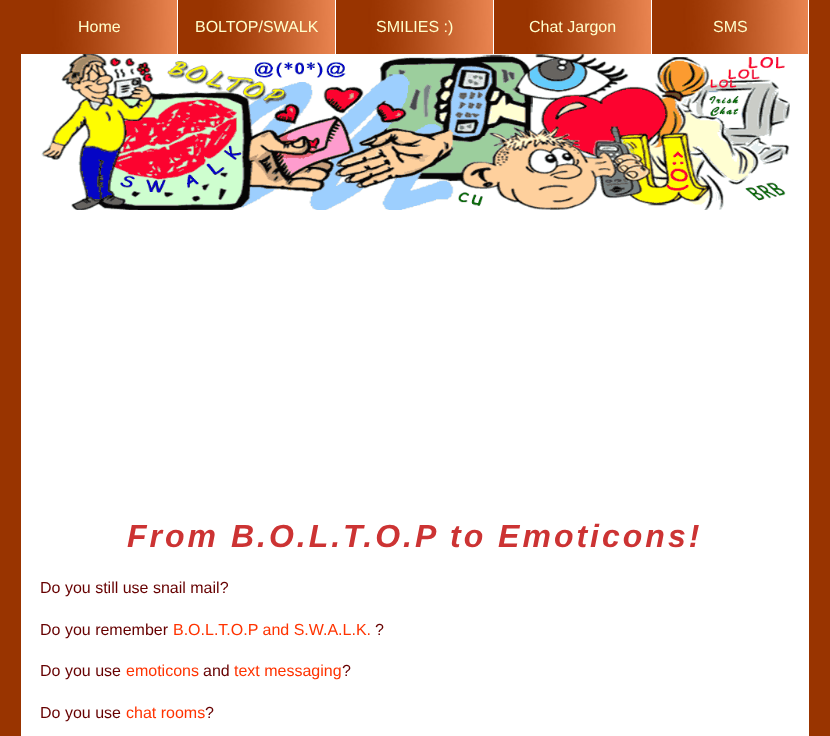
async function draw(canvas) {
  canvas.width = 830;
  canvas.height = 736;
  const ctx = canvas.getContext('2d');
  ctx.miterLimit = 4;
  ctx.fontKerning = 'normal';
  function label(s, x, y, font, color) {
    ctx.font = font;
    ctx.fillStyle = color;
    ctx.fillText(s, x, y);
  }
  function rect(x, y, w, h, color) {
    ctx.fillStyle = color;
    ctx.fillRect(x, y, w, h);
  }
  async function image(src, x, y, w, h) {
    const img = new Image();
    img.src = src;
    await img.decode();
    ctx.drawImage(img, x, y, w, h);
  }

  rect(0, 0, 830, 736, '#fff');
  await image('assets/img1.png', 0, 0, 830, 736);
  rect(21, 54, 788, 682, '#fff');
  await image('assets/img2.png', 21, 0, 156, 54);
  rect(177, 0, 1, 54, '#fff');
  label('Home', 78, 32, '16px Liberation Sans', '#ffc');
  await image('assets/img3.png', 178, 0, 157, 54);
  rect(335, 0, 1, 54, '#fff');
  label('BOLTOP/SWALK', 195, 32, '16px Liberation Sans', '#ffc');
  await image('assets/img3.png', 336, 0, 157, 54);
  rect(493, 0, 1, 54, '#fff');
  label('SMILIES :)', 376, 32, '16px Liberation Sans', '#ffc');
  await image('assets/img3.png', 494, 0, 157, 54);
  rect(651, 0, 1, 54, '#fff');
  label('Chat Jargon', 529, 32, '16px Liberation Sans', '#ffc');
  await image('assets/img2.png', 652, 0, 156, 54);
  rect(808, 0, 1, 54, '#fff');
  label('SMS', 713, 32, '16px Liberation Sans', '#ffc');
  await image('assets/img4.png', 41, 54, 749, 156);
  ctx.letterSpacing = '3px';
  label('From B.O.L.T.O.P to Emoticons!', 127, 547, 'italic bold 32px Liberation Sans', '#c33');
  ctx.letterSpacing = '0px';
  label('Do you still use snail mail?', 40, 593, '16px Liberation Sans', '#600');
  label('Do you remember', 40, 635, '16px Liberation Sans', '#600');
  label('B.O.L.T.O.P and S.W.A.L.K.', 173, 635, '16px Liberation Sans', '#f30');
  label('?', 375, 635, '16px Liberation Sans', '#600');
  label('Do you use', 40, 676, '16px Liberation Sans', '#600');
  label('emoticons', 126, 676, '16px Liberation Sans', '#f30');
  label('and', 203, 676, '16px Liberation Sans', '#600');
  label('text messaging', 234, 676, '16px Liberation Sans', '#f30');
  label('?', 342, 676, '16px Liberation Sans', '#600');
  label('Do you use', 40, 718, '16px Liberation Sans', '#600');
  label('chat rooms', 126, 718, '16px Liberation Sans', '#f30');
  label('?', 205, 718, '16px Liberation Sans', '#600');
}

draw(document.querySelector('canvas'));
